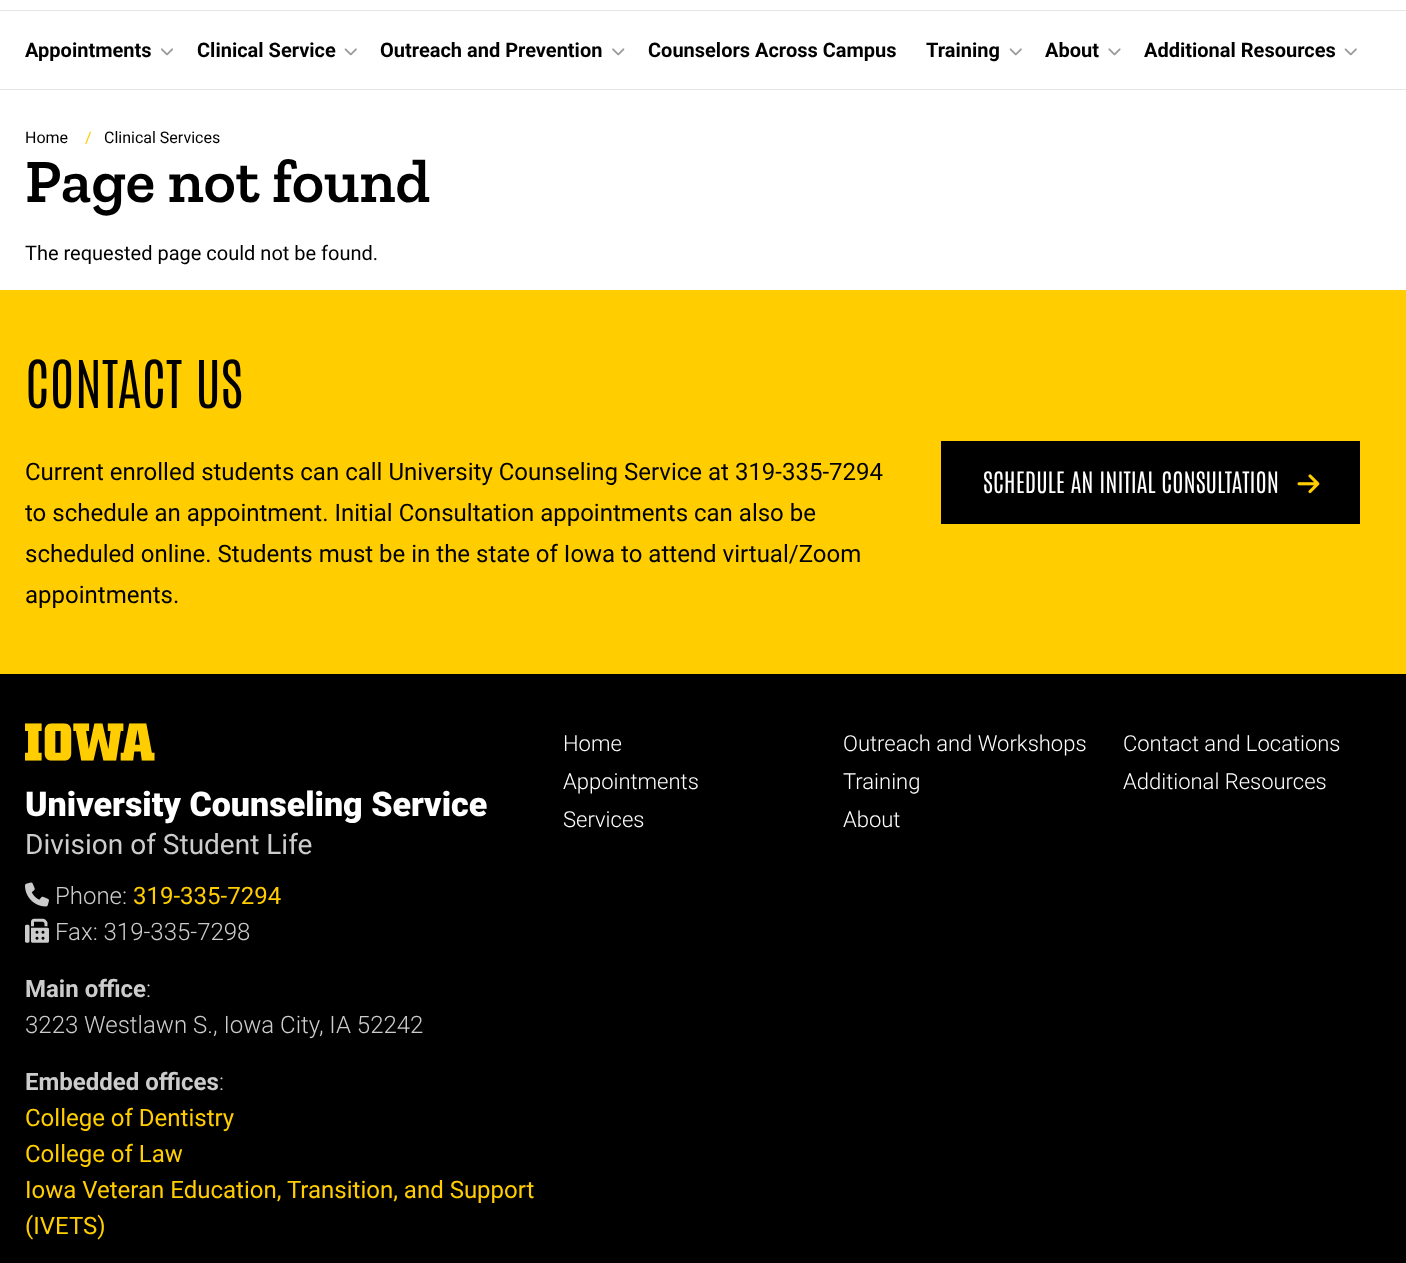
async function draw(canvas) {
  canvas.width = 1406;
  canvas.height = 1263;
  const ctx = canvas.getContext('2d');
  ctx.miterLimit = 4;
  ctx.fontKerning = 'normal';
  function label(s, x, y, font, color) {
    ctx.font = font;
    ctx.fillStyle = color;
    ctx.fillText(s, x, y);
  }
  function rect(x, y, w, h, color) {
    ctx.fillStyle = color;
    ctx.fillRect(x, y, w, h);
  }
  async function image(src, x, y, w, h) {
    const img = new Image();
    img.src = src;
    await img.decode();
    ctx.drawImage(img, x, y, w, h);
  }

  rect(0, 0, 1406, 1263, '#fff');
  rect(0, 10, 1406, 1, '#e6e5e5');
  rect(0, 89, 1406, 1, '#e6e5e5');
  label('Appointments', 25, 57, 'bold 20px Roboto', '#000');
  await image('assets/img1.png', 161, 48, 12, 8);
  label('Clinical Service', 197, 57, 'bold 20px Roboto', '#000');
  await image('assets/img2.png', 344, 48, 13, 8);
  label('Outreach and Prevention', 380, 57, 'bold 20px Roboto', '#000');
  await image('assets/img3.png', 612, 48, 13, 8);
  label('Counselors Across Campus', 648, 57, 'bold 20px Roboto', '#000');
  label('Training', 926, 57, 'bold 20px Roboto', '#000');
  await image('assets/img2.png', 1009, 48, 13, 8);
  label('About', 1045, 57, 'bold 20px Roboto', '#000');
  await image('assets/img4.png', 1108, 48, 13, 8);
  label('Additional Resources', 1144, 57, 'bold 20px Roboto', '#000');
  await image('assets/img2.png', 1344, 48, 13, 8);
  label('Home', 25, 143, '16px Roboto', '#000');
  label('/', 85, 143, '16px Roboto', '#ffcd00');
  label('Clinical Services', 104, 143, '16px Roboto', '#000');
  label('Page not found', 25, 202, '600 61.5px Zilla Slab', '#000');
  label('The requested page could not be found.', 25, 260, '20px Roboto', '#000');
  rect(0, 290, 1406, 384, '#ffcd00');
  label('CONTACT US', 25, 408, '300 56px Antonio', '#000');
  label('Current enrolled students can call University Counseling Service at 319-335-7294', 25, 480, '24px Roboto', '#000');
  label('to schedule an appointment. Initial Consultation appointments can also be', 25, 521, '24px Roboto', '#000');
  label('scheduled online. Students must be in the state of Iowa to attend virtual/Zoom', 25, 562, '24px Roboto', '#000');
  label('appointments.', 25, 603, '24px Roboto', '#000');
  rect(941, 441, 419, 83, '#000');
  label('SCHEDULE AN INITIAL CONSULTATION', 983, 493, '300 25px Antonio', '#fff');
  await image('assets/img5.png', 1297, 474, 23, 20);
  rect(0, 674, 1406, 589, '#000');
  await image('assets/img6.png', 25, 723, 130, 38);
  label('University Counseling Service', 25, 816, '900 34px Roboto', '#fff');
  label('Division of Student Life', 25, 854, '28px Roboto', '#ccc');
  await image('assets/img7.png', 25, 882, 24, 25);
  label('Phone:', 55, 904, '300 24px Roboto', '#ccc');
  label('319-335-7294', 133, 904, '24px Roboto', '#ffcd00');
  await image('assets/img8.png', 25, 918, 24, 25);
  label('Fax: 319-335-7298', 55, 940, '300 24px Roboto', '#ccc');
  label('Main office', 25, 997, 'bold 24px Roboto', '#ccc');
  label(':', 146, 997, '300 24px Roboto', '#ccc');
  label('3223 Westlawn S., Iowa City, IA 52242', 25, 1033, '300 24px Roboto', '#ccc');
  label('Embedded offices', 25, 1090, 'bold 24px Roboto', '#ccc');
  label(':', 219, 1090, '300 24px Roboto', '#ccc');
  label('College of Dentistry', 25, 1126, '24px Roboto', '#ffcd00');
  label('College of Law', 25, 1162, '24px Roboto', '#ffcd00');
  label('Iowa Veteran Education, Transition, and Support', 25, 1198, '24px Roboto', '#ffcd00');
  label('(IVETS)', 25, 1234, '24px Roboto', '#ffcd00');
  label('Home', 563, 751, '300 22px Roboto', '#fff');
  label('Appointments', 563, 789, '300 22px Roboto', '#fff');
  label('Services', 563, 827, '300 22px Roboto', '#fff');
  label('Outreach and Workshops', 843, 751, '300 22px Roboto', '#fff');
  label('Training', 843, 789, '300 22px Roboto', '#fff');
  label('About', 843, 827, '300 22px Roboto', '#fff');
  label('Contact and Locations', 1123, 751, '300 22px Roboto', '#fff');
  label('Additional Resources', 1123, 789, '300 22px Roboto', '#fff');
}

draw(document.querySelector('canvas'));
